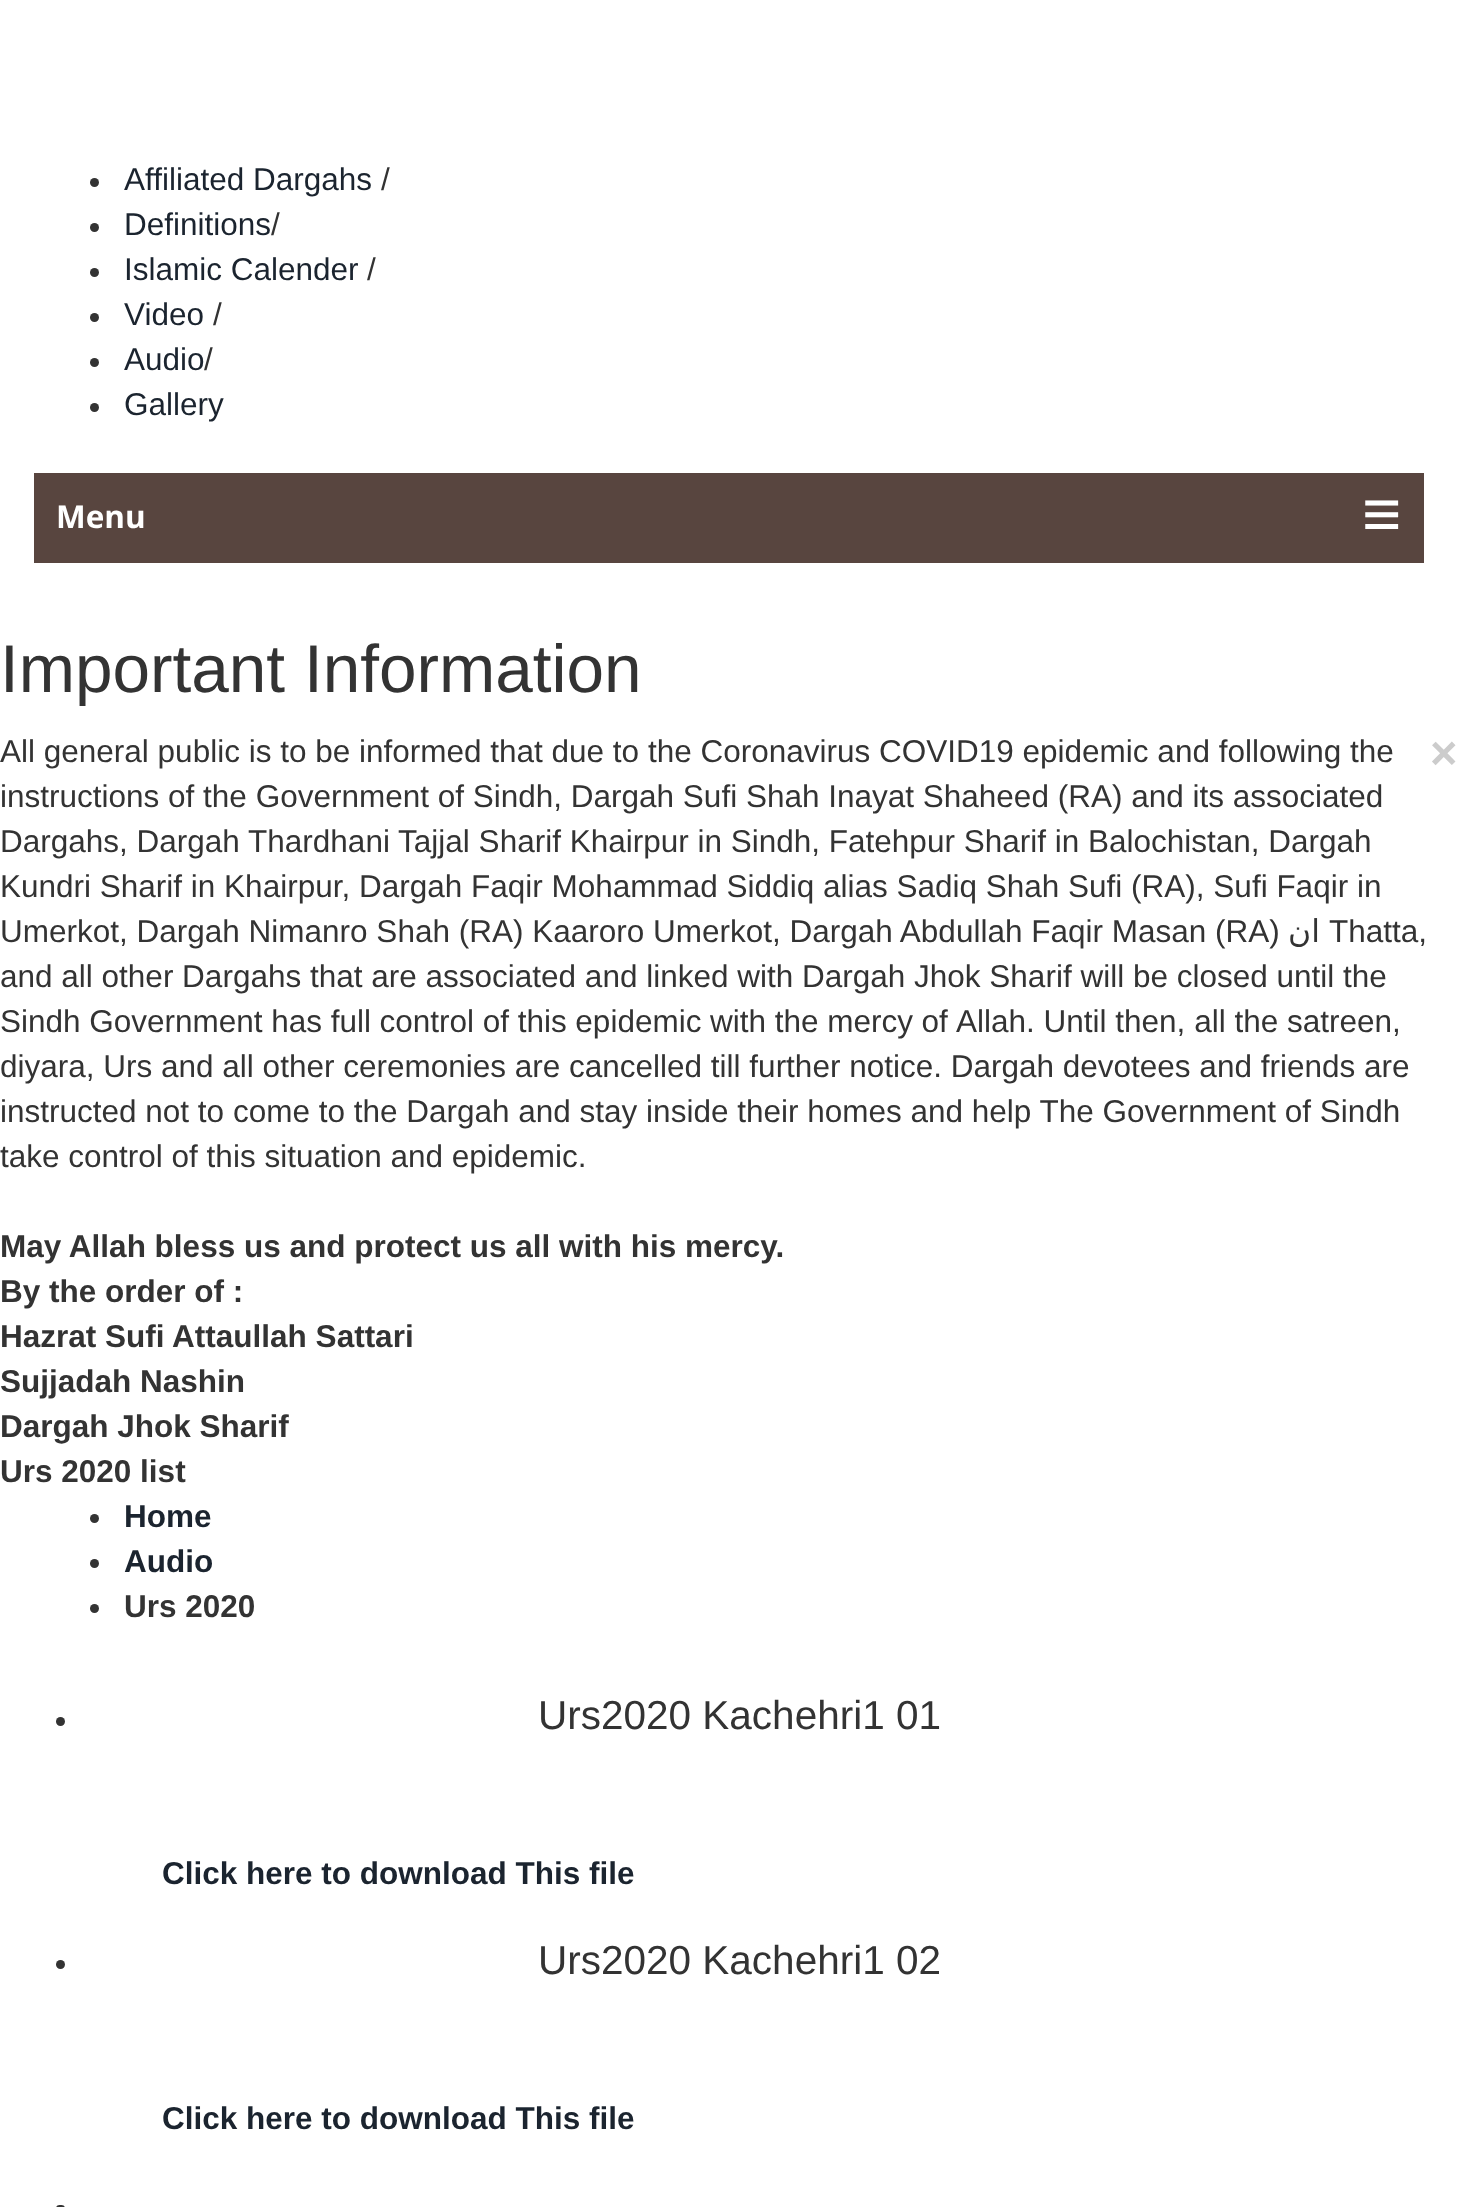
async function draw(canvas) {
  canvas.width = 1458;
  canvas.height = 2207;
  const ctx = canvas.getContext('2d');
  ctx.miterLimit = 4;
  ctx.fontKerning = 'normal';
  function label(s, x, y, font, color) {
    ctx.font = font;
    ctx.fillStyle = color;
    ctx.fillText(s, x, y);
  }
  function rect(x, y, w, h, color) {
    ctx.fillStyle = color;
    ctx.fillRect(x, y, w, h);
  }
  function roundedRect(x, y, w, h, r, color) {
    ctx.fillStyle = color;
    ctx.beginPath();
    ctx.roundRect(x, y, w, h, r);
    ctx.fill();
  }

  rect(0, 0, 1458, 2207, '#fff');
  ctx.fillStyle = '#333';
  ctx.beginPath();
  ctx.arc(94.5, 182.5, 4.5, 0, 2 * Math.PI);
  ctx.fill();
  label('Affiliated Dargahs', 124, 190, '31.5px Liberation Sans', '#1b242f');
  label('/', 381, 190, '31.5px Liberation Sans', '#333');
  ctx.beginPath();
  ctx.arc(94.5, 227.5, 4.5, 0, 2 * Math.PI);
  ctx.fill();
  label('Definitions', 124, 235, '31.5px Liberation Sans', '#1b242f');
  label('/', 271, 235, '31.5px Liberation Sans', '#333');
  ctx.beginPath();
  ctx.arc(94.5, 272.5, 4.5, 0, 2 * Math.PI);
  ctx.fill();
  label('Islamic Calender', 124, 280, '31.5px Liberation Sans', '#1b242f');
  label('/', 367, 280, '31.5px Liberation Sans', '#333');
  ctx.beginPath();
  ctx.arc(94.5, 317.5, 4.5, 0, 2 * Math.PI);
  ctx.fill();
  label('Video', 124, 325, '31.5px Liberation Sans', '#1b242f');
  label('/', 213, 325, '31.5px Liberation Sans', '#333');
  ctx.beginPath();
  ctx.arc(94.5, 362.5, 4.5, 0, 2 * Math.PI);
  ctx.fill();
  label('Audio', 124, 370, '31.5px Liberation Sans', '#1b242f');
  label('/', 204, 370, '31.5px Liberation Sans', '#333');
  ctx.beginPath();
  ctx.arc(94.5, 407.5, 4.5, 0, 2 * Math.PI);
  ctx.fill();
  label('Gallery', 124, 415, '31.5px Liberation Sans', '#1b242f');
  rect(34, 473, 1390, 90, '#58453f');
  label('Menu', 56, 528, 'bold 31.5px Open Sans', '#fff');
  label('≡', 1362, 537, 'bold 67.5px Liberation Sans', '#fff');
  label('Important Information', 0, 692, '67.5px Liberation Sans', '#333');
  label('All general public is to be informed that due to the Coronavirus COVID19 epidemic and following the', 0, 762, '31.5px Liberation Sans', '#333');
  label('instructions of the Government of Sindh, Dargah Sufi Shah Inayat Shaheed (RA) and its associated', 0, 807, '31.5px Liberation Sans', '#333');
  label('Dargahs, Dargah Thardhani Tajjal Sharif Khairpur in Sindh, Fatehpur Sharif in Balochistan, Dargah', 0, 852, '31.5px Liberation Sans', '#333');
  label('Kundri Sharif in Khairpur, Dargah Faqir Mohammad Siddiq alias Sadiq Shah Sufi (RA), Sufi Faqir in', 0, 897, '31.5px Liberation Sans', '#333');
  label('Umerkot, Dargah Nimanro Shah (RA) Kaaroro Umerkot, Dargah Abdullah Faqir Masan (RA)', 0, 942, '31.5px Liberation Sans', '#333');
  ctx.direction = 'rtl';
  label('ان', 1320, 942, '31.5px DejaVu Sans', '#333');
  ctx.direction = 'ltr';
  label('Thatta,', 1329, 942, '31.5px Liberation Sans', '#333');
  label('and all other Dargahs that are associated and linked with Dargah Jhok Sharif will be closed until the', 0, 987, '31.5px Liberation Sans', '#333');
  ctx.wordSpacing = '-0.1px';
  label('Sindh Government has full control of this epidemic with the mercy of', 0, 1032, '31.5px Liberation Sans', '#333');
  ctx.wordSpacing = '0px';
  label('Allah. Until then, all the satreen,', 956, 1032, '31.5px Liberation Sans', '#333');
  label('diyara, Urs and all other ceremonies are cancelled till further notice. Dargah devotees and friends are', 0, 1077, '31.5px Liberation Sans', '#333');
  label('instructed not to come to the Dargah and stay inside their homes and help The Government of Sindh', 0, 1122, '31.5px Liberation Sans', '#333');
  label('take control of this situation and epidemic.', 0, 1167, '31.5px Liberation Sans', '#333');
  label('May Allah bless us and protect us all with his mercy.', 0, 1257, 'bold 31.5px Liberation Sans', '#333');
  label('By the order of :', 0, 1302, 'bold 31.5px Liberation Sans', '#333');
  label('Hazrat Sufi Attaullah Sattari', 0, 1347, 'bold 31.5px Liberation Sans', '#333');
  label('Sujjadah Nashin', 0, 1392, 'bold 31.5px Liberation Sans', '#333');
  label('Dargah Jhok Sharif', 0, 1437, 'bold 31.5px Liberation Sans', '#333');
  label('×', 1430, 769, 'bold 47px Liberation Sans', '#ccc');
  label('Urs 2020 list', 0, 1482, 'bold 31.5px Liberation Sans', '#333');
  ctx.beginPath();
  ctx.arc(94.5, 1518.5, 4.5, 0, 2 * Math.PI);
  ctx.fill();
  label('Home', 124, 1527, 'bold 31.5px Liberation Sans', '#1b242f');
  ctx.fillStyle = '#333';
  ctx.beginPath();
  ctx.arc(94.5, 1563.5, 4.5, 0, 2 * Math.PI);
  ctx.fill();
  label('Audio', 124, 1572, 'bold 31.5px Liberation Sans', '#1b242f');
  ctx.fillStyle = '#333';
  ctx.beginPath();
  ctx.arc(94.5, 1608.5, 4.5, 0, 2 * Math.PI);
  ctx.fill();
  label('Urs 2020', 124, 1617, 'bold 31.5px Liberation Sans', '#333');
  ctx.beginPath();
  ctx.arc(60.5, 1721.5, 4.5, 0, 2 * Math.PI);
  ctx.fill();
  label('Urs2020 Kachehri1 01', 538, 1729, '40.5px Liberation Sans', '#333');
  label('Click here to download This file', 162, 1884, 'bold 31.5px Liberation Sans', '#1b242f');
  ctx.fillStyle = '#333';
  ctx.beginPath();
  ctx.arc(60.5, 1964.5, 4.5, 0, 2 * Math.PI);
  ctx.fill();
  label('Urs2020 Kachehri1 02', 538, 1974, '40.5px Liberation Sans', '#333');
  label('Click here to download This file', 162, 2129, 'bold 31.5px Liberation Sans', '#1b242f');
  roundedRect(56, 2205, 9, 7, 4.5, '#333');
}

draw(document.querySelector('canvas'));
